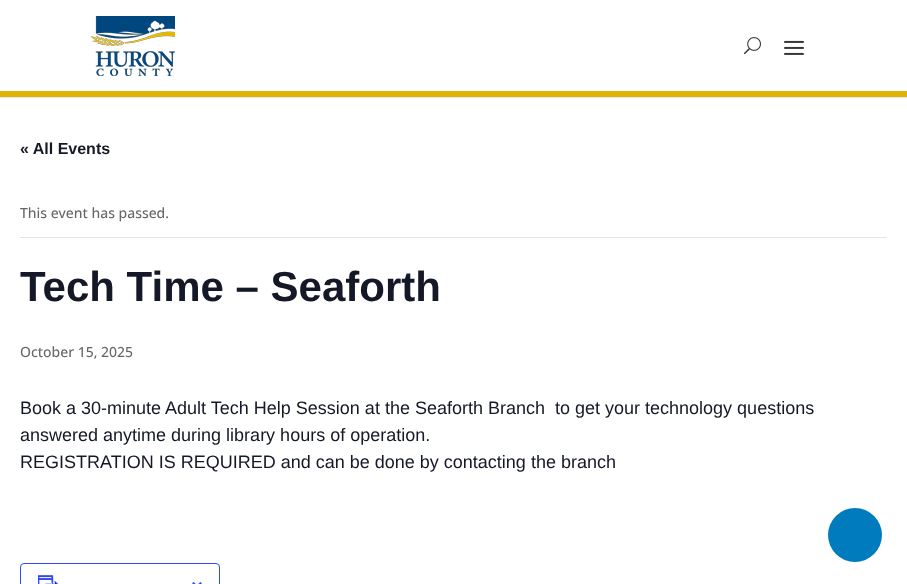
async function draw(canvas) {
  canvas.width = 907;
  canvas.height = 584;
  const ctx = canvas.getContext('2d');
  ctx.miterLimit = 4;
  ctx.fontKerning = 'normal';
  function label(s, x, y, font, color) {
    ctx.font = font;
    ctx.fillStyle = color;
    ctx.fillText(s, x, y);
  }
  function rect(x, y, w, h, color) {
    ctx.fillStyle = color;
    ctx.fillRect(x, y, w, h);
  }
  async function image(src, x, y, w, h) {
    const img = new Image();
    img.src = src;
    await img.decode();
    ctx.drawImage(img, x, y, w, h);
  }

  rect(0, 0, 907, 584, '#fff');
  rect(0, 97, 907, 1, '#e6e6e6');
  rect(0, 91, 907, 6, '#deb406');
  await image('assets/img1.png', 91, 16, 84, 60);
  await image('assets/img2.png', 744, 37, 17, 18);
  await image('assets/img3.png', 784, 40, 20, 15);
  label('« All Events', 20, 154, 'bold 16px Liberation Sans', '#141827');
  rect(20, 237, 867, 1, '#e4e4e4');
  label('This event has passed.', 20, 218, '500 14px Open Sans', '#666');
  label('Tech Time – Seaforth', 20, 301, 'bold 42px Liberation Sans', '#141827');
  label('October 15, 2025', 20, 357, '500 14px Open Sans', '#666');
  label('Book a 30-minute Adult Tech Help Session at the Seaforth Branch  to get your technology questions', 20, 414, '18px Liberation Sans', '#141827');
  label('answered anytime during library hours of operation.', 20, 441, '18px Liberation Sans', '#141827');
  label('REGISTRATION IS REQUIRED and can be done by contacting the branch', 20, 468, '18px Liberation Sans', '#141827');
  ctx.beginPath();
  ctx.roundRect(20.5, 563.5, 199, 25, 3.5);
  ctx.strokeStyle = '#334aff';
  ctx.stroke();
  await image('assets/img4.png', 38, 575, 20, 9);
  await image('assets/img5.png', 192, 582, 10, 2);
  ctx.fillStyle = '#007bbd';
  ctx.beginPath();
  ctx.arc(855, 535, 27, 0, 2 * Math.PI);
  ctx.fill();
}

draw(document.querySelector('canvas'));
